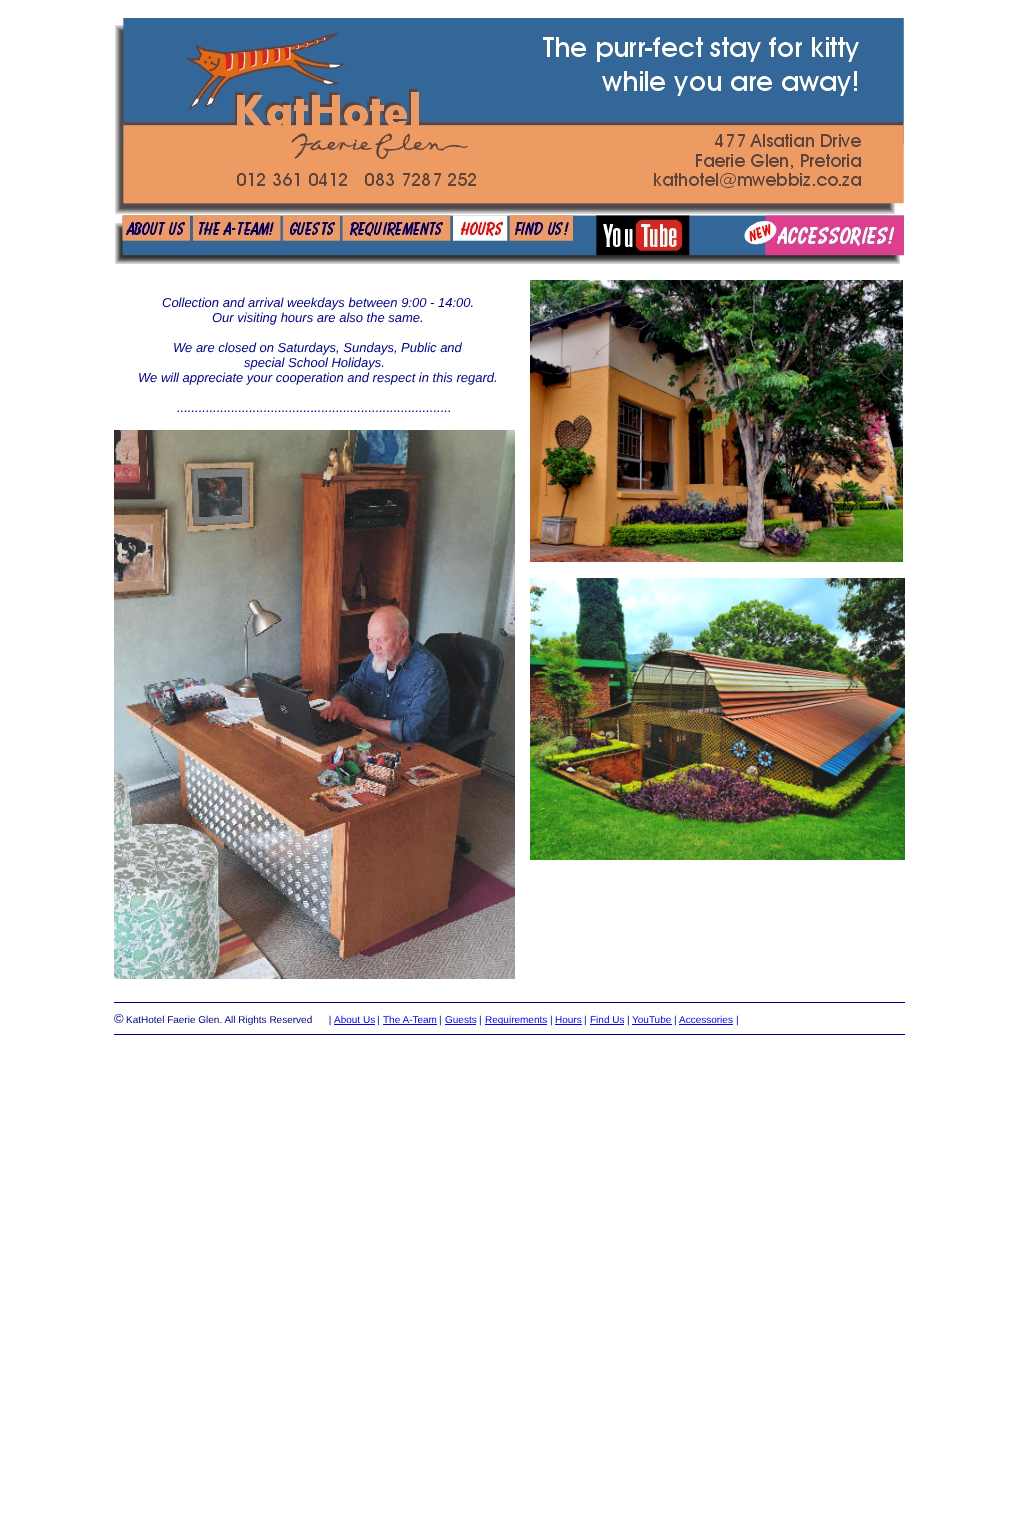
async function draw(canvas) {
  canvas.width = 1018;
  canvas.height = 1515;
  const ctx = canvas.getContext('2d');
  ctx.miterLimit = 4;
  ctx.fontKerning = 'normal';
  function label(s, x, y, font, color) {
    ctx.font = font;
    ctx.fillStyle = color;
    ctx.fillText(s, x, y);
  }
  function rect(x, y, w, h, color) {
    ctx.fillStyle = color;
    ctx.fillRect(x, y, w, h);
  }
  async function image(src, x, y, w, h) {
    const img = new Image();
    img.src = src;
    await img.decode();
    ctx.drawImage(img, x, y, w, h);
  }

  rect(0, 0, 1018, 1515, '#fff');
  await image('assets/img1.png', 115, 18, 789, 196);
  await image('assets/img2.png', 115, 215, 789, 49);
  label('Collection and arrival weekdays between 9:00 - 14:00.', 162, 307, 'italic 13px Liberation Sans', '#000080');
  label('Our visiting hours are also the same.', 212, 322, 'italic 13px Liberation Sans', '#000080');
  label('We are closed on Saturdays, Sundays, Public and', 173, 352, 'italic 13px Liberation Sans', '#000080');
  label('special School Holidays.', 244, 367, 'italic 13px Liberation Sans', '#000080');
  label('We will appreciate your cooperation and respect in this regard.', 138, 382, 'italic 13px Liberation Sans', '#000080');
  label('............................................................................', 177, 412, 'italic 13px Liberation Sans', '#000080');
  await image('assets/img3.png', 114, 430, 401, 549);
  await image('assets/img4.png', 530, 280, 373, 282);
  await image('assets/img5.png', 530, 578, 375, 282);
  rect(114, 1002, 791, 1, '#000080');
  label('©', 114, 1023, '13px Liberation Sans', '#000080');
  label('KatHotel Faerie Glen. All Rights Reserved      |', 126, 1023, '10px Liberation Sans', '#000080');
  label('About Us', 334, 1023, '10px Liberation Sans', '#00e');
  rect(334, 1024, 41, 1, '#00e');
  label('|', 377, 1023, '10px Liberation Sans', '#000080');
  label('The A-Team', 383, 1023, '10px Liberation Sans', '#00e');
  rect(383, 1024, 54, 1, '#00e');
  label('|', 439, 1023, '10px Liberation Sans', '#000080');
  label('Guests', 445, 1023, '10px Liberation Sans', '#00e');
  rect(445, 1024, 31, 1, '#00e');
  label('|', 479, 1023, '10px Liberation Sans', '#000080');
  rect(485, 1024, 62, 1, '#00e');
  label('Requirements', 485, 1023, '10px Liberation Sans', '#00e');
  label('|', 550, 1023, '10px Liberation Sans', '#000080');
  label('Hours', 555, 1023, '10px Liberation Sans', '#00e');
  rect(555, 1024, 27, 1, '#00e');
  label('|', 584, 1023, '10px Liberation Sans', '#000080');
  label('Find Us', 590, 1023, '10px Liberation Sans', '#00e');
  rect(590, 1024, 34, 1, '#00e');
  label('|', 627, 1023, '10px Liberation Sans', '#000080');
  label('YouTube', 632, 1023, '10px Liberation Sans', '#00e');
  rect(632, 1024, 40, 1, '#00e');
  label('|', 674, 1023, '10px Liberation Sans', '#000080');
  label('Accessories', 679, 1023, '10px Liberation Sans', '#00e');
  rect(679, 1024, 54, 1, '#00e');
  label('|', 736, 1023, '10px Liberation Sans', '#000080');
  rect(114, 1034, 791, 1, '#000080');
}

draw(document.querySelector('canvas'));
